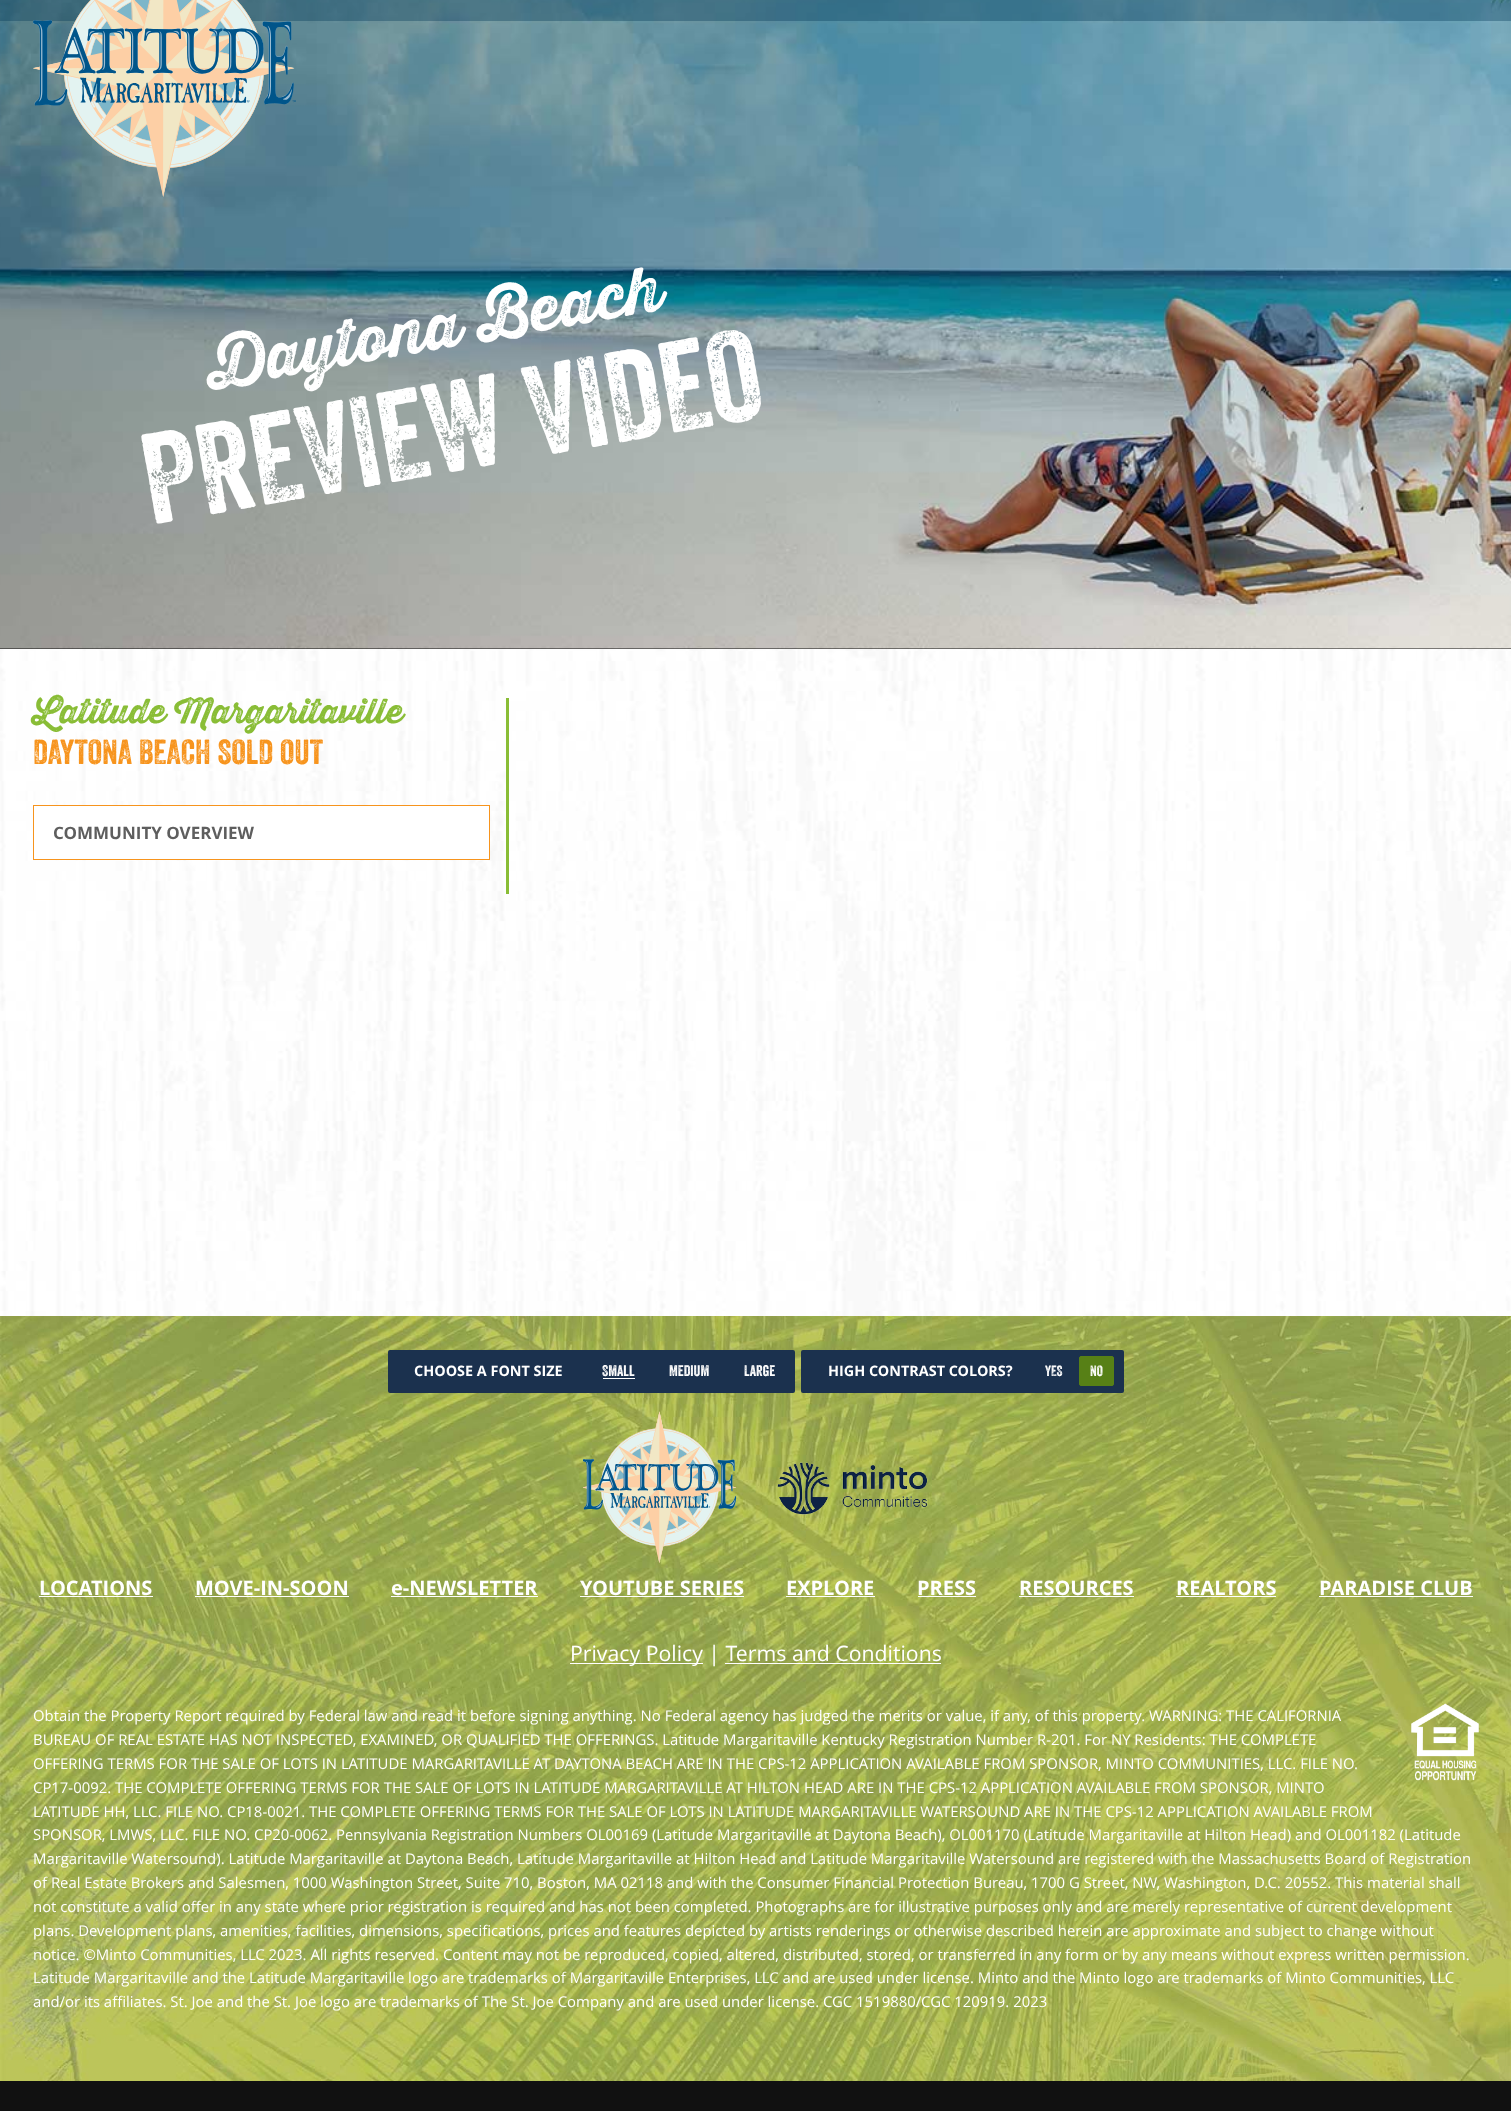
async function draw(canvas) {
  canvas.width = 1511;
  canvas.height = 2111;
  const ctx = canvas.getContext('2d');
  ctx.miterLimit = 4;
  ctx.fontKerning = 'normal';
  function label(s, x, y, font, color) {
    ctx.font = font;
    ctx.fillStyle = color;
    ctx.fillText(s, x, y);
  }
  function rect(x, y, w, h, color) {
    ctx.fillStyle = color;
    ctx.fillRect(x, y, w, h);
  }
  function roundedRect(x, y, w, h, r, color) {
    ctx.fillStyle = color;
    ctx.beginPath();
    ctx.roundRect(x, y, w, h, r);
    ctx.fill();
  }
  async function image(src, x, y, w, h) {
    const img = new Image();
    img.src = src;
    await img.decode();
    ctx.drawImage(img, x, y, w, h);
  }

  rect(0, 0, 1511, 2111, '#111');
  await image('assets/img1.png', 0, 649, 1511, 667);
  await image('assets/img3.png', 0, 0, 1511, 649);
  rect(0, 0, 1511, 21, '#00365759');
  await image('assets/img2.png', 33, 0, 263, 197);
  ctx.font = '62.5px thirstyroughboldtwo';
  ctx.fillStyle = '#fff';
  ctx.save();
  ctx.translate(210, 389);
  ctx.rotate(-10 * Math.PI / 180);
  ctx.fillText('Daytona Beach', 0, 0);
  ctx.restore();
  ctx.font = '125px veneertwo';
  ctx.save();
  ctx.translate(151, 525);
  ctx.rotate(-10 * Math.PI / 180);
  ctx.fillText('PREVIEW VIDEO', 0, 0);
  ctx.restore();
  rect(506, 698, 3, 196, '#89bd36');
  label('Latitude Margaritaville', 33, 723, '33.75px thirstyroughboldtwo', '#89bd36');
  label('DAYTONA BEACH SOLD OUT', 33, 764, '33.75px veneertwo', '#f7941d');
  ctx.strokeStyle = '#f7941d';
  ctx.strokeRect(33.5, 805.5, 456, 54);
  rect(34, 806, 455, 53, '#fff');
  label('COMMUNITY OVERVIEW', 53, 839, 'bold 17px Open Sans', '#5e5e5e');
  await image('assets/img4.png', 0, 1316, 1511, 765);
  roundedRect(388, 1350, 407, 43, 2, '#1b314e');
  label('CHOOSE A FONT SIZE', 414, 1376, 'bold 14.4px Open Sans', '#fff');
  label('Small', 602, 1376, '15px veneertwo', '#fff');
  rect(603, 1378, 32, 1, '#fff');
  label('Medium', 669, 1376, '15px veneertwo', '#fff');
  label('Large', 744, 1376, '15px veneertwo', '#fff');
  roundedRect(801, 1350, 323, 43, 2, '#1b314e');
  label('HIGH CONTRAST COLORS?', 828, 1376, 'bold 14.4px Open Sans', '#fff');
  label('YES', 1045, 1376, '14.4px veneertwo', '#fff');
  ctx.fillStyle = '#578016';
  ctx.beginPath();
  ctx.roundRect(1079.5, 1356.5, 34, 29, 1.5);
  ctx.fill();
  ctx.strokeStyle = '#578016';
  ctx.stroke();
  label('NO', 1090, 1376, '14.4px veneertwo', '#fff');
  await image('assets/img5.png', 583, 1411, 155, 152);
  await image('assets/img6.png', 777, 1462, 151, 53);
  label('LOCATIONS', 39, 1595, 'bold 20px Open Sans', '#fff');
  rect(39, 1596, 114, 1, '#fff');
  label('MOVE-IN-SOON', 195, 1595, 'bold 20px Open Sans', '#fff');
  rect(195, 1596, 154, 1, '#fff');
  label('e-NEWSLETTER', 391, 1595, 'bold 20px Open Sans', '#fff');
  rect(391, 1596, 147, 1, '#fff');
  label('YOUTUBE SERIES', 580, 1595, 'bold 20px Open Sans', '#fff');
  rect(580, 1596, 164, 1, '#fff');
  label('EXPLORE', 786, 1595, 'bold 20px Open Sans', '#fff');
  rect(786, 1596, 89, 1, '#fff');
  label('PRESS', 917, 1595, 'bold 20px Open Sans', '#fff');
  rect(918, 1596, 58, 1, '#fff');
  label('RESOURCES', 1019, 1595, 'bold 20px Open Sans', '#fff');
  rect(1019, 1596, 115, 1, '#fff');
  label('REALTORS', 1176, 1595, 'bold 20px Open Sans', '#fff');
  rect(1176, 1596, 100, 1, '#fff');
  label('PARADISE CLUB', 1319, 1595, 'bold 20px Open Sans', '#fff');
  rect(1319, 1596, 154, 1, '#fff');
  rect(570, 1663, 133, 1, '#fff');
  label('Privacy Policy | Terms and Conditions', 570, 1661, '21.25px Open Sans', '#fff');
  rect(725, 1663, 216, 1, '#fff');
  await image('assets/img7.png', 1411, 1703, 68, 78);
  label('Obtain the Property Report required by Federal law and read it before signing anything. No Federal agency has judged the merits or value, if any, of this property. WARNING: THE CALIFORNIA', 33, 1721, '14.88px Open Sans', '#fff');
  label('BUREAU OF REAL ESTATE HAS NOT INSPECTED, EXAMINED, OR QUALIFIED THE OFFERINGS. Latitude Margaritaville Kentucky Registration Number R-201. For NY Residents: THE COMPLETE', 33, 1745, '14.88px Open Sans', '#fff');
  label('OFFERING TERMS FOR THE SALE OF LOTS IN LATITUDE MARGARITAVILLE AT DAYTONA BEACH ARE IN THE CPS-12 APPLICATION AVAILABLE FROM SPONSOR, MINTO COMMUNITIES, LLC. FILE NO.', 33, 1769, '14.88px Open Sans', '#fff');
  label('CP17-0092. THE COMPLETE OFFERING TERMS FOR THE SALE OF LOTS IN LATITUDE MARGARITAVILLE AT HILTON HEAD ARE IN THE CPS-12 APPLICATION AVAILABLE FROM SPONSOR, MINTO', 33, 1793, '14.88px Open Sans', '#fff');
  label('LATITUDE HH, LLC. FILE NO. CP18-0021. THE COMPLETE OFFERING TERMS FOR THE SALE OF LOTS IN LATITUDE MARGARITAVILLE WATERSOUND ARE IN THE CPS-12 APPLICATION AVAILABLE FROM', 33, 1817, '14.88px Open Sans', '#fff');
  label('SPONSOR, LMWS, LLC. FILE NO. CP20-0062. Pennsylvania Registration Numbers OL00169 (Latitude Margaritaville at Daytona Beach), OL001170 (Latitude Margaritaville at Hilton Head) and OL001182 (Latitude', 33, 1840, '14.88px Open Sans', '#fff');
  label('Margaritaville Watersound). Latitude Margaritaville at Daytona Beach, Latitude Margaritaville at Hilton Head and Latitude Margaritaville Watersound are registered with the Massachusetts Board of Registration', 33, 1864, '14.88px Open Sans', '#fff');
  label('of Real Estate Brokers and Salesmen, 1000 Washington Street, Suite 710, Boston, MA 02118 and with the Consumer Financial Protection Bureau, 1700 G Street, NW, Washington, D.C. 20552. This material shall', 33, 1888, '14.88px Open Sans', '#fff');
  label('not constitute a valid offer in any state where prior registration is required and has not been completed. Photographs are for illustrative purposes only and are merely representative of current development', 33, 1912, '14.88px Open Sans', '#fff');
  label('plans. Development plans, amenities, facilities, dimensions, specifications, prices and features depicted by artists renderings or otherwise described herein are approximate and subject to change without', 33, 1936, '14.88px Open Sans', '#fff');
  label('notice. ©Minto Communities, LLC 2023. All rights reserved. Content may not be reproduced, copied, altered, distributed, stored, or transferred in any form or by any means without express written permission.', 33, 1960, '14.88px Open Sans', '#fff');
  label('Latitude Margaritaville and the Latitude Margaritaville logo are trademarks of Margaritaville Enterprises, LLC and are used under license. Minto and the Minto logo are trademarks of Minto Communities, LLC', 33, 1983, '14.88px Open Sans', '#fff');
  label('and/or its affiliates. St. Joe and the St. Joe logo are trademarks of The St. Joe Company and are used under license. CGC 1519880/CGC 120919. 2023', 33, 2007, '14.88px Open Sans', '#fff');
}

draw(document.querySelector('canvas'));
